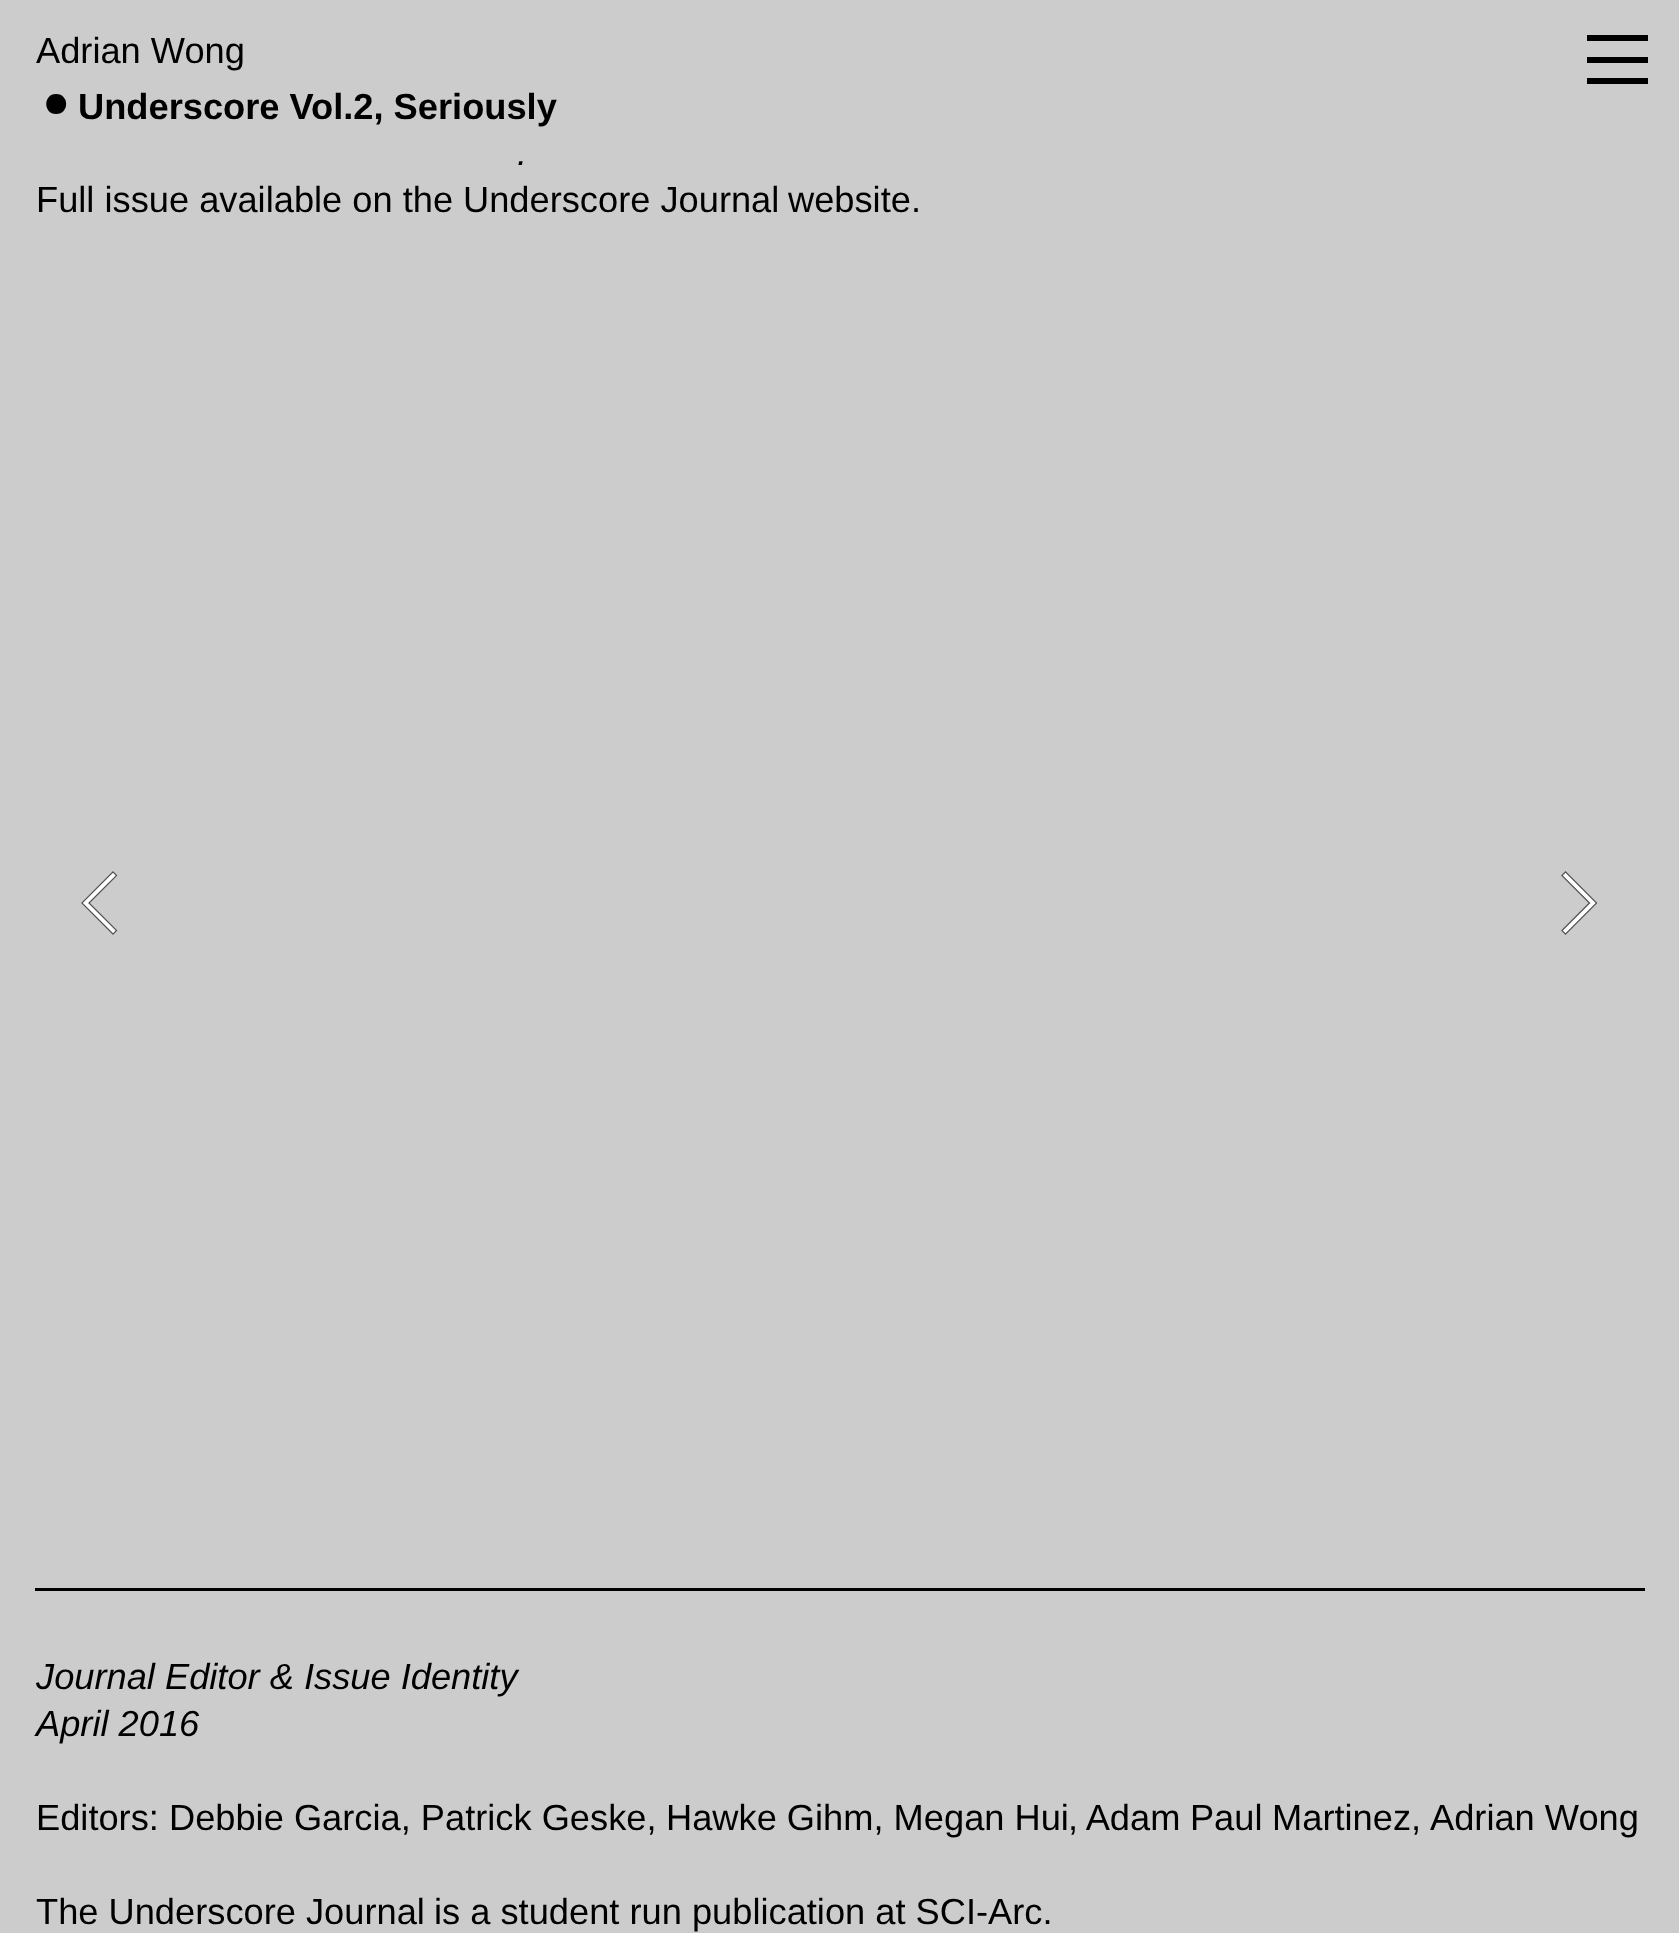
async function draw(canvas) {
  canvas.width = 1679;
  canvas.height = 1933;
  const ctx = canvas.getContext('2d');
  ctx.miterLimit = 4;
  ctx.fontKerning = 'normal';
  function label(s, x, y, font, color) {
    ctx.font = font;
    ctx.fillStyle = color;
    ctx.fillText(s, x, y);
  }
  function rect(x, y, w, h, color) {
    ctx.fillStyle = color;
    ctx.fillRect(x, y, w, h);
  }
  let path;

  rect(0, 0, 1679, 1933, '#ccc');
  ctx.fillStyle = '#000';
  path = new Path2D('M1648 35V41H1587V35ZM1648 57V63H1587V57ZM1648 78V84H1587V78Z');
  ctx.fill(path);
  label('Adrian Wong', 36, 63, '36.25px Liberation Sans', '#000');
  label('Underscore Vol.2, Seriously', 78, 119, 'bold 36.25px Liberation Sans', '#000');
  path = new Path2D('M56 114C69.5 114 69.5 94 56 94C43 94 43 114 56 114Z');
  ctx.fill(path);
  label('.', 517, 165, 'italic 36.25px Liberation Sans', '#000');
  label('Full issue available on the', 36, 212, '36.25px Liberation Sans', '#000');
  label('Underscore Journal', 463, 212, '36.25px Liberation Sans', '#000');
  label('website.', 788, 212, '36.25px Liberation Sans', '#000');
  path = new Path2D('M113 930.5L85.5 903L113 875.5');
  ctx.strokeStyle = '#525252';
  ctx.lineWidth = 6.2;
  ctx.lineCap = 'square';
  ctx.stroke(path);
  path = new Path2D('M113 930.5L85.5 903L113 875.5');
  ctx.strokeStyle = '#fff';
  ctx.lineWidth = 3.8;
  ctx.stroke(path);
  path = new Path2D('M1565.5 930.5L1593 903L1565.5 875.5');
  ctx.strokeStyle = '#525252';
  ctx.lineWidth = 6.2;
  ctx.stroke(path);
  path = new Path2D('M1565.5 930.5L1593 903L1565.5 875.5');
  ctx.strokeStyle = '#fff';
  ctx.lineWidth = 3.8;
  ctx.stroke(path);
  rect(35, 1588, 1610, 3, '#000');
  label('Journal Editor & Issue Identity', 36, 1689, 'italic 36.25px Liberation Sans', '#000');
  label('April 2016', 36, 1736, 'italic 36.25px Liberation Sans', '#000');
  label('Editors: Debbie Garcia, Patrick Geske,', 36, 1830, '36.25px Liberation Sans', '#000');
  label('Hawke Gihm, Megan Hui', 666, 1830, '36.25px Liberation Sans', '#000');
  ctx.wordSpacing = '-0.5px';
  label(', Adam Paul Martinez,', 1068, 1830, '36.25px Liberation Sans', '#000');
  ctx.wordSpacing = '0px';
  label('Adrian Wong', 1430, 1830, '36.25px Liberation Sans', '#000');
  label('The Underscore Journal', 36, 1924, '36.25px Liberation Sans', '#000');
  label('is a student run publication at SCI-Arc.', 434, 1924, '36.25px Liberation Sans', '#000');
}

draw(document.querySelector('canvas'));
